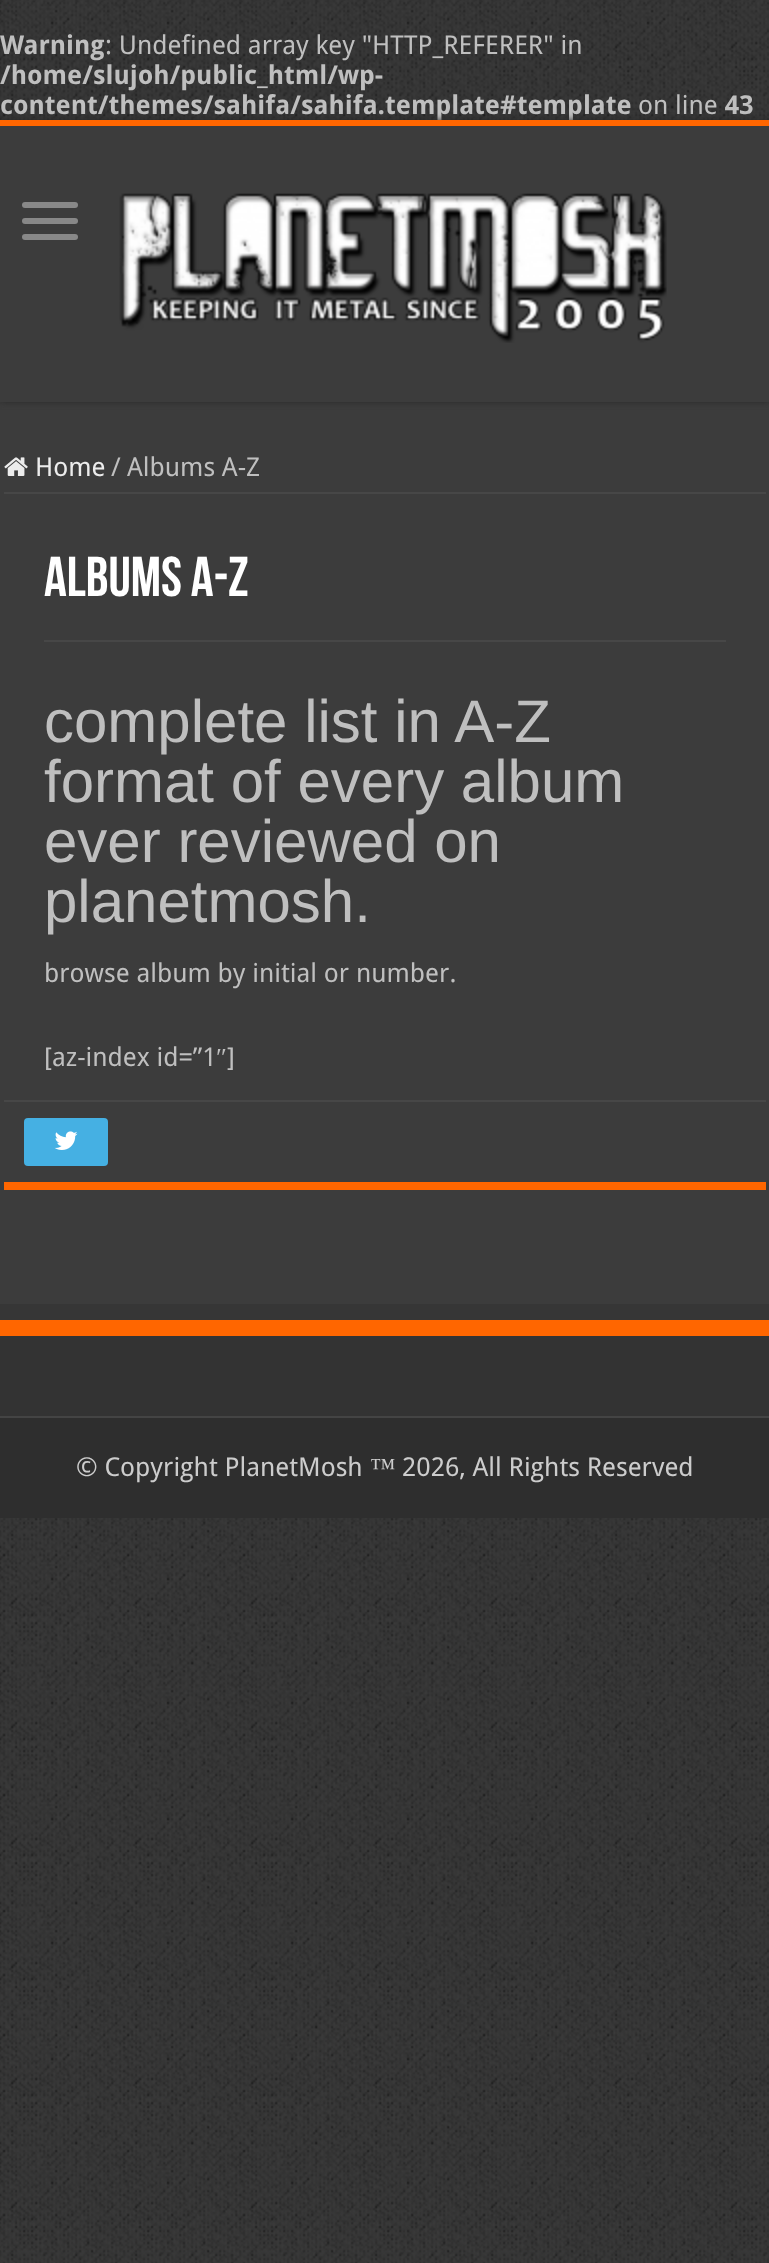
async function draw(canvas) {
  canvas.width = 769;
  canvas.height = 2263;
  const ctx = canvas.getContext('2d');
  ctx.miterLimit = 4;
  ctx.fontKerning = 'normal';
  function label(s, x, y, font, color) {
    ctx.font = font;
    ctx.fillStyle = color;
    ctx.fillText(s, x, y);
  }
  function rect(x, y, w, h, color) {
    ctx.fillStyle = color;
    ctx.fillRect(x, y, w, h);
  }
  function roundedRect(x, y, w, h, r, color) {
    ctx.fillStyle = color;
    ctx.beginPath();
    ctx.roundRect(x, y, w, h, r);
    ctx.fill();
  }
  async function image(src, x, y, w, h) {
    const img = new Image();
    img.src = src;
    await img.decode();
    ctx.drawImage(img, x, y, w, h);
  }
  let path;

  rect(0, 0, 769, 2263, '#000');
  await image('assets/img1.png', 0, 0, 769, 2263);
  label('Warning', 0, 54, 'bold 26px Droid Sans', '#bfbfbf');
  label(': Undefined array key "HTTP_REFERER" in', 105, 54, '26px Droid Sans', '#bfbfbf');
  label('/home/slujoh/public_html/wp-', 0, 84, 'bold 26px Droid Sans', '#bfbfbf');
  label('content/themes/sahifa/sahifa.template#template', 0, 114, 'bold 26px Droid Sans', '#bfbfbf');
  label('on line', 638, 114, '26px Droid Sans', '#bfbfbf');
  label('43', 725, 114, 'bold 26px Droid Sans', '#bfbfbf');
  rect(0, 126, 769, 1178, '#3c3c3c');
  ctx.save();
  path = new Path2D('M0 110H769V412H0ZM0 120H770V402H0Z');
  ctx.clip(path, 'evenodd');
  ctx.fillStyle = '#2a2a2a';
  ctx.filter = 'blur(3px)';
  ctx.beginPath();
  ctx.rect(0, 120, 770, 282);
  ctx.fill();
  ctx.filter = 'none';
  ctx.restore();
  rect(0, 120, 769, 6, '#f60');
  roundedRect(22, 202, 56, 6, 3, '#888');
  roundedRect(22, 218, 56, 6, 3, '#888');
  roundedRect(22, 234, 56, 6, 3, '#888');
  await image('assets/img2.png', 119, 193, 548, 150);
  rect(4, 492, 762, 2, '#474747');
  await image('assets/img3.png', 4, 457, 24, 19);
  label('Home', 35, 476, '26px Droid Sans', '#ececec');
  label('/', 111, 476, '26px Droid Sans', '#bfbfbf');
  label('Albums A-Z', 127, 476, '26px Droid Sans', '#bfbfbf');
  rect(4, 1182, 762, 8, '#f60');
  label('Albums A-Z', 44, 596, 'bold 56px Bebas Neue', '#fff');
  rect(44, 640, 682, 2, '#474747');
  label('complete list in A-Z', 44, 742, '60px Liberation Sans', '#bfbfbf');
  label('format of every album', 44, 802, '60px Liberation Sans', '#bfbfbf');
  label('ever reviewed on', 44, 862, '60px Liberation Sans', '#bfbfbf');
  label('planetmosh.', 44, 922, '60px Liberation Sans', '#bfbfbf');
  label('browse album by initial or number.', 44, 982, '26px Droid Sans', '#bfbfbf');
  label('[az-index id=”1', 44, 1066, '26px Droid Sans', '#bfbfbf');
  label('″', 216, 1066, '26px Liberation Serif', '#bfbfbf');
  label(']', 227, 1066, '26px Droid Sans', '#bfbfbf');
  rect(4, 1100, 762, 2, '#474747');
  roundedRect(24, 1118, 84, 48, 4, '#45b0e3');
  await image('assets/img4.png', 54, 1131, 24, 19);
  rect(0, 1304, 769, 16, '#363636');
  rect(0, 1336, 769, 80, '#333');
  rect(0, 1320, 769, 16, '#f60');
  rect(0, 1418, 769, 100, '#2e2e2e');
  rect(0, 1416, 769, 2, '#444');
  label('© Copyright PlanetMosh', 76, 1476, '26px Droid Sans', '#ccc');
  label('™', 370, 1476, '26px Liberation Serif', '#ccc');
  label('2026, All Rights Reserved', 402, 1476, '26px Droid Sans', '#ccc');
}

draw(document.querySelector('canvas'));
